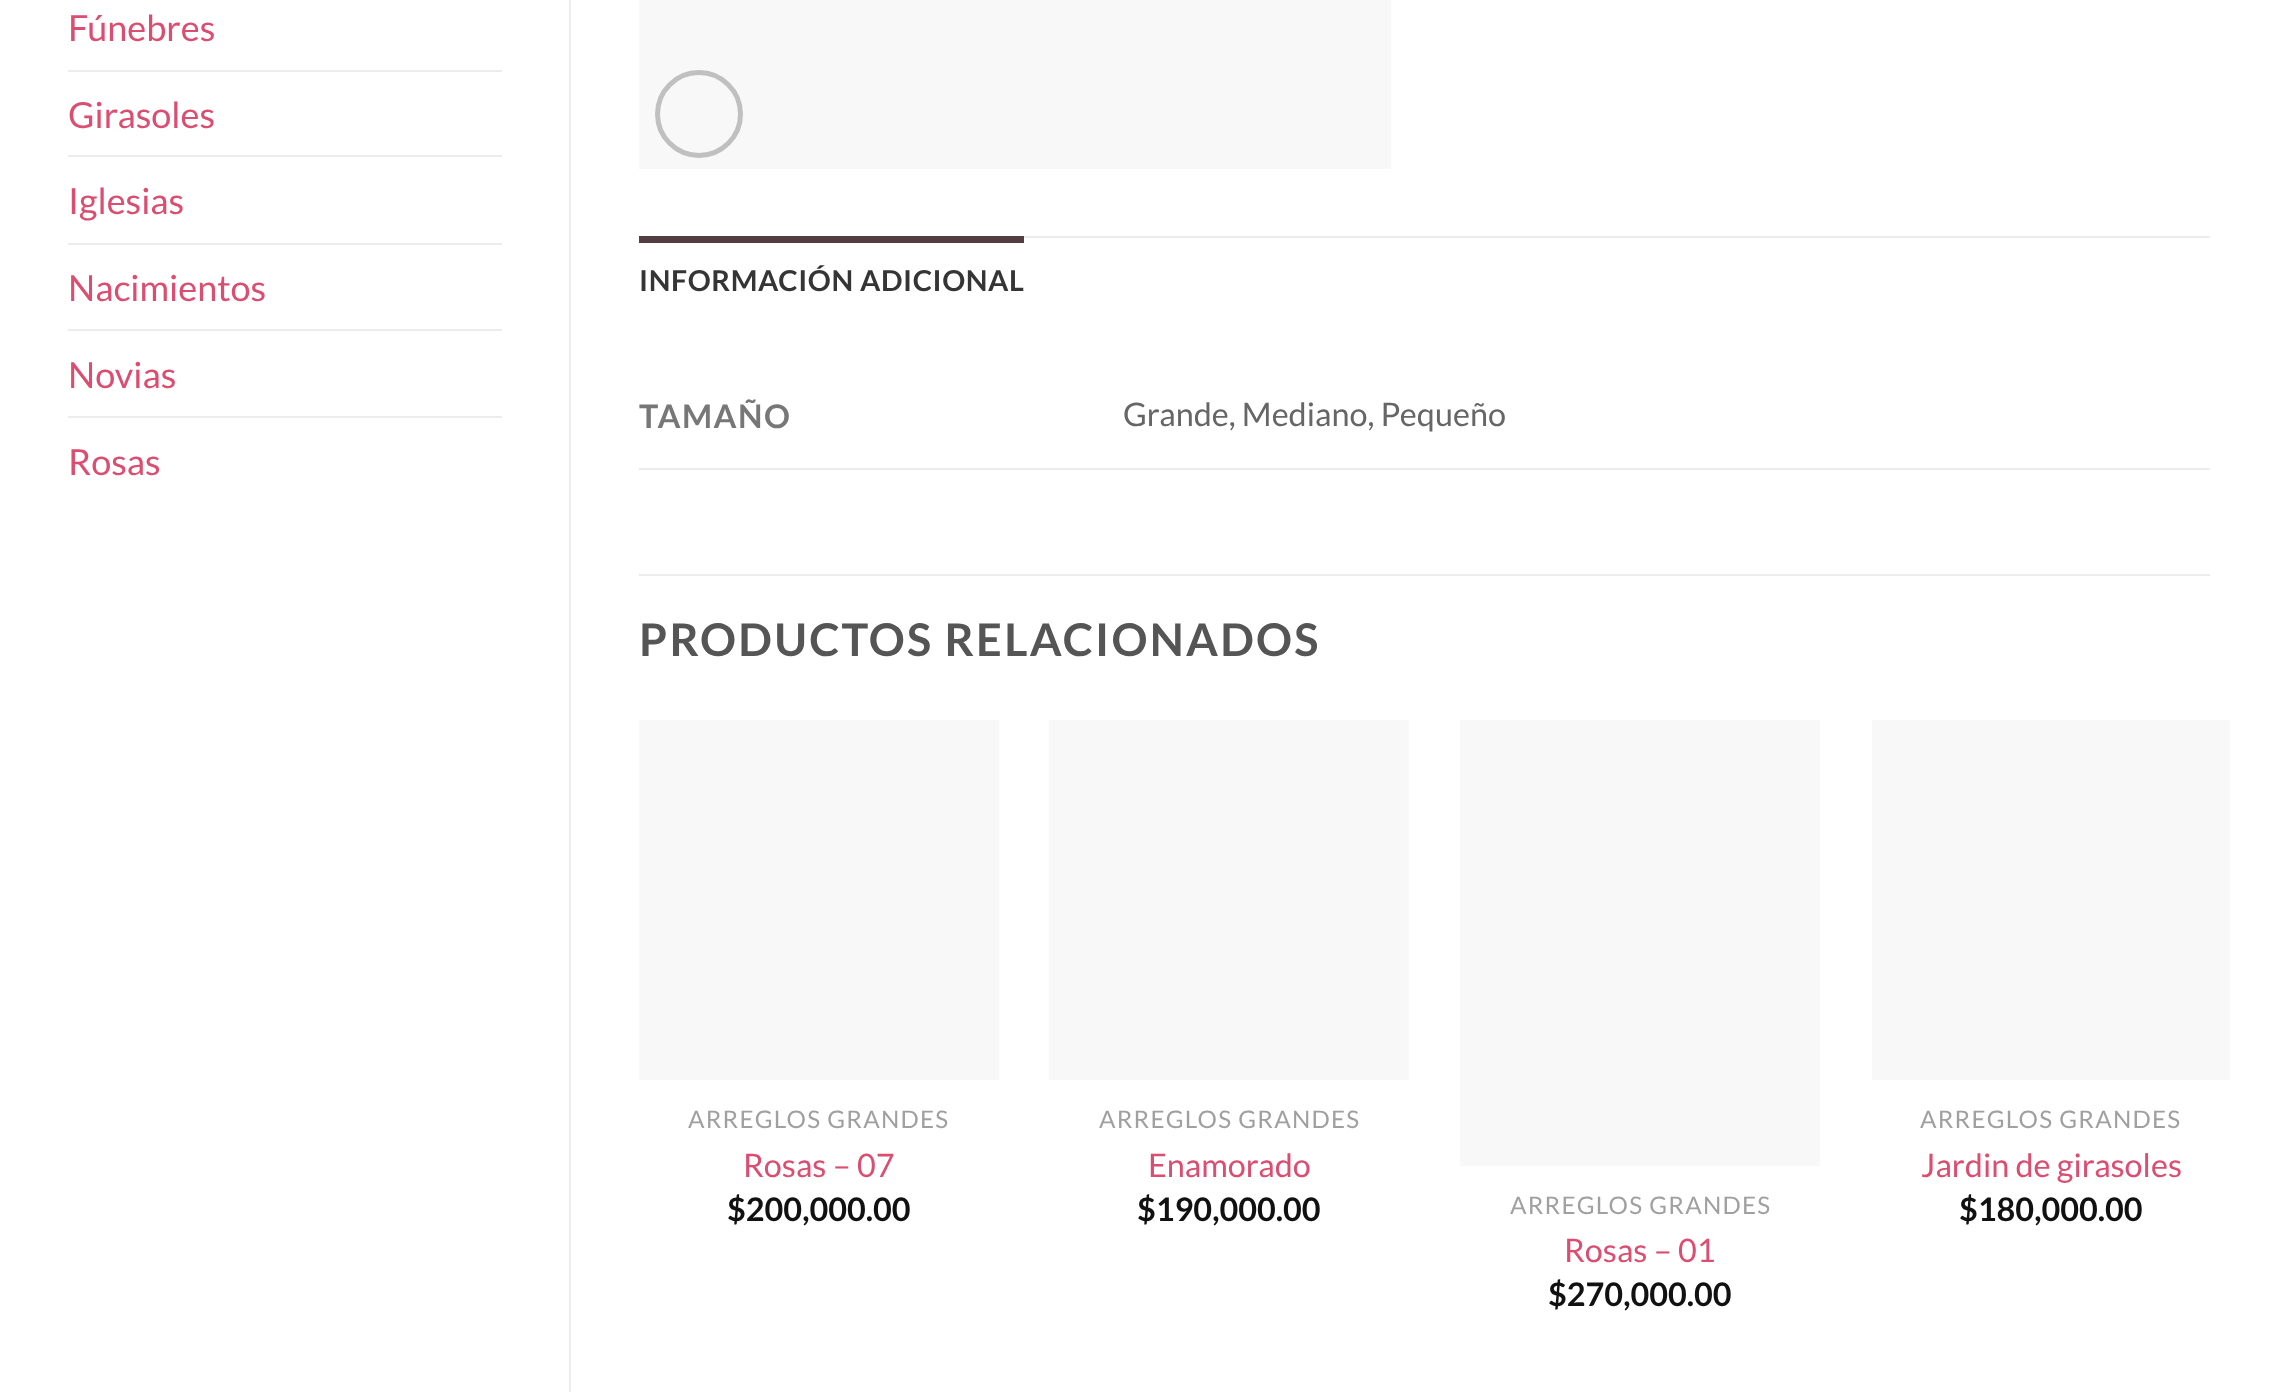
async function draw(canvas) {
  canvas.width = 2275;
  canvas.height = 1392;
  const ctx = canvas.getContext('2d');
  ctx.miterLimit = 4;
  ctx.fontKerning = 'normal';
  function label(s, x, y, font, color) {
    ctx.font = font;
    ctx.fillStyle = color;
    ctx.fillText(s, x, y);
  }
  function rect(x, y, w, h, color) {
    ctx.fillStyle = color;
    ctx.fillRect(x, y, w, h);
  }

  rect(0, 0, 2275, 1392, '#fff');
  label('Fúnebres', 68, 41, '36px Lato', '#db4e71');
  rect(68, 70, 434, 2, '#ececec');
  label('Girasoles', 68, 128, '36px Lato', '#db4e71');
  rect(68, 155, 434, 2, '#ececec');
  label('Iglesias', 68, 214, '36px Lato', '#db4e71');
  rect(68, 243, 434, 2, '#ececec');
  label('Nacimientos', 68, 301, '36px Lato', '#db4e71');
  rect(68, 329, 434, 2, '#ececec');
  label('Novias', 68, 388, '36px Lato', '#db4e71');
  rect(68, 416, 434, 2, '#ececec');
  label('Rosas', 68, 475, '36px Lato', '#db4e71');
  rect(569, 0, 2, 1392, '#ececec');
  rect(639, 0, 752, 169, '#f8f8f8');
  ctx.beginPath();
  ctx.arc(699, 114, 41.5, 0, 2 * Math.PI);
  ctx.strokeStyle = '#c0c0c0';
  ctx.lineWidth = 5;
  ctx.stroke();
  rect(1024, 236, 1186, 2, '#ececec');
  rect(639, 236, 385, 7, '#543d43');
  ctx.letterSpacing = '0.6px';
  label('INFORMACIÓN ADICIONAL', 639, 291, 'bold 28.75px Lato', '#353535');
  rect(639, 468, 1571, 2, '#ececec');
  ctx.letterSpacing = '1.5px';
  label('TAMAÑO', 639, 428, 'bold 32.4px Lato', '#777');
  ctx.letterSpacing = '0px';
  label('Grande, Mediano, Pequeño', 1123, 426, '32.4px Lato', '#666');
  rect(639, 574, 1571, 2, '#ececec');
  ctx.letterSpacing = '2.25px';
  label('PRODUCTOS RELACIONADOS', 639, 656, 'bold 45px Lato', '#555');
  rect(639, 720, 360, 360, '#f8f8f8');
  ctx.letterSpacing = '1.25px';
  label('ARREGLOS GRANDES', 688, 1128, '24.25px Lato', '#a0a0a0');
  ctx.letterSpacing = '0px';
  label('Rosas – 07', 743, 1177, '32.4px Lato', '#db4e71');
  label('$200,000.00', 727, 1221, 'bold 32.4px Lato', '#111');
  rect(1049, 720, 360, 360, '#f8f8f8');
  ctx.letterSpacing = '1.25px';
  label('ARREGLOS GRANDES', 1099, 1128, '24.25px Lato', '#a0a0a0');
  ctx.letterSpacing = '0px';
  label('Enamorado', 1148, 1177, '32.4px Lato', '#db4e71');
  label('$190,000.00', 1137, 1221, 'bold 32.4px Lato', '#111');
  rect(1872, 720, 358, 360, '#f8f8f8');
  ctx.letterSpacing = '1.25px';
  label('ARREGLOS GRANDES', 1920, 1128, '24.25px Lato', '#a0a0a0');
  ctx.letterSpacing = '0px';
  label('Jardin de girasoles', 1921, 1177, '32.4px Lato', '#db4e71');
  label('$180,000.00', 1959, 1221, 'bold 32.4px Lato', '#111');
  rect(1460, 720, 360, 446, '#f8f8f8');
  ctx.letterSpacing = '1.25px';
  label('ARREGLOS GRANDES', 1510, 1214, '24.25px Lato', '#a0a0a0');
  ctx.letterSpacing = '0px';
  label('Rosas – 01', 1564, 1262, '32.4px Lato', '#db4e71');
  label('$270,000.00', 1548, 1306, 'bold 32.4px Lato', '#111');
}

draw(document.querySelector('canvas'));
